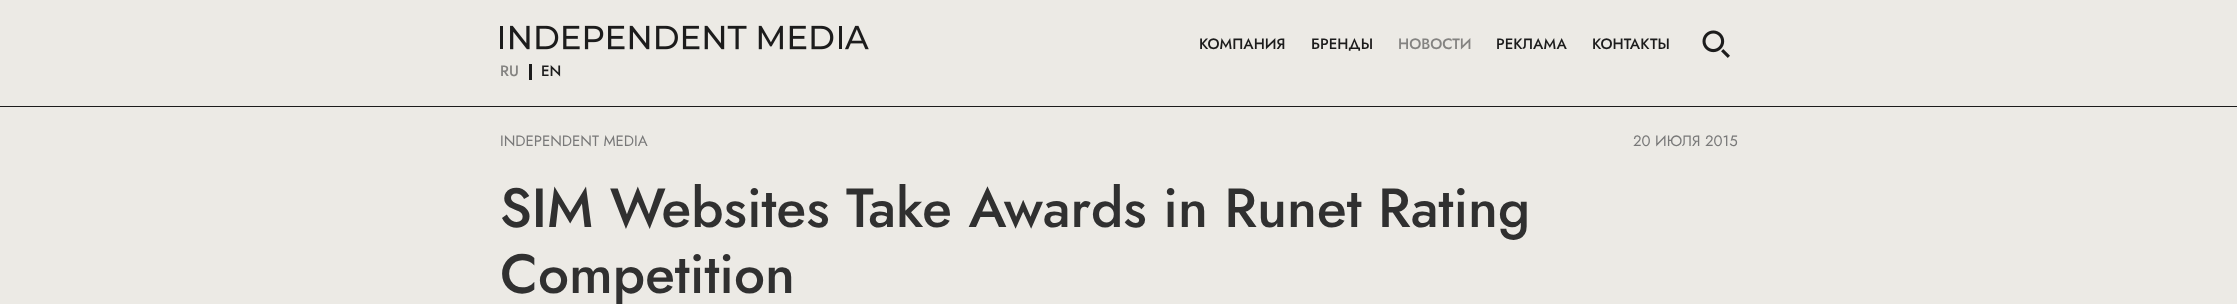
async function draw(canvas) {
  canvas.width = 2237;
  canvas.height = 304;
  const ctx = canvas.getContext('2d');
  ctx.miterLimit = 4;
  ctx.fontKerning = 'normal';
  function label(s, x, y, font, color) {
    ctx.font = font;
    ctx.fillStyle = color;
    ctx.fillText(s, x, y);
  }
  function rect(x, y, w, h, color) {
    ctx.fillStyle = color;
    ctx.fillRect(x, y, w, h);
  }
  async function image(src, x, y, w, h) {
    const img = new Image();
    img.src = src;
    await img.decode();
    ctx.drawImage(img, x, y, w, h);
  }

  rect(0, 0, 2237, 304, '#eceae5');
  rect(0, 106, 2237, 1, '#1c1c1c');
  await image('assets/img1.png', 500, 25, 369, 25);
  label('КОМПАНИЯ', 1199, 49, '500 15px Jost', '#1c1c1c');
  label('БРЕНДЫ', 1311, 49, '500 15px Jost', '#1c1c1c');
  label('НОВОСТИ', 1398, 49, '500 15px Jost', '#848381');
  label('РЕКЛАМА', 1496, 49, '500 15px Jost', '#1c1c1c');
  label('КОНТАКТЫ', 1592, 49, '500 15px Jost', '#1c1c1c');
  await image('assets/img2.png', 1702, 30, 28, 28);
  label('RU', 500, 76, '500 15px Jost', '#848381');
  rect(529, 64, 3, 16, '#1c1c1c');
  label('EN', 541, 76, '500 15px Jost', '#1c1c1c');
  label('INDEPENDENT MEDIA', 500, 146, '15px Jost', '#797979');
  label('20 ИЮЛЯ 2015', 1633, 146, '15px Jost', '#797979');
  label('SIM Websites Take Awards in Runet Rating', 500, 227, '500 55px Jost', '#303030');
  label('Competition', 500, 293, '500 55px Jost', '#303030');
}

draw(document.querySelector('canvas'));
